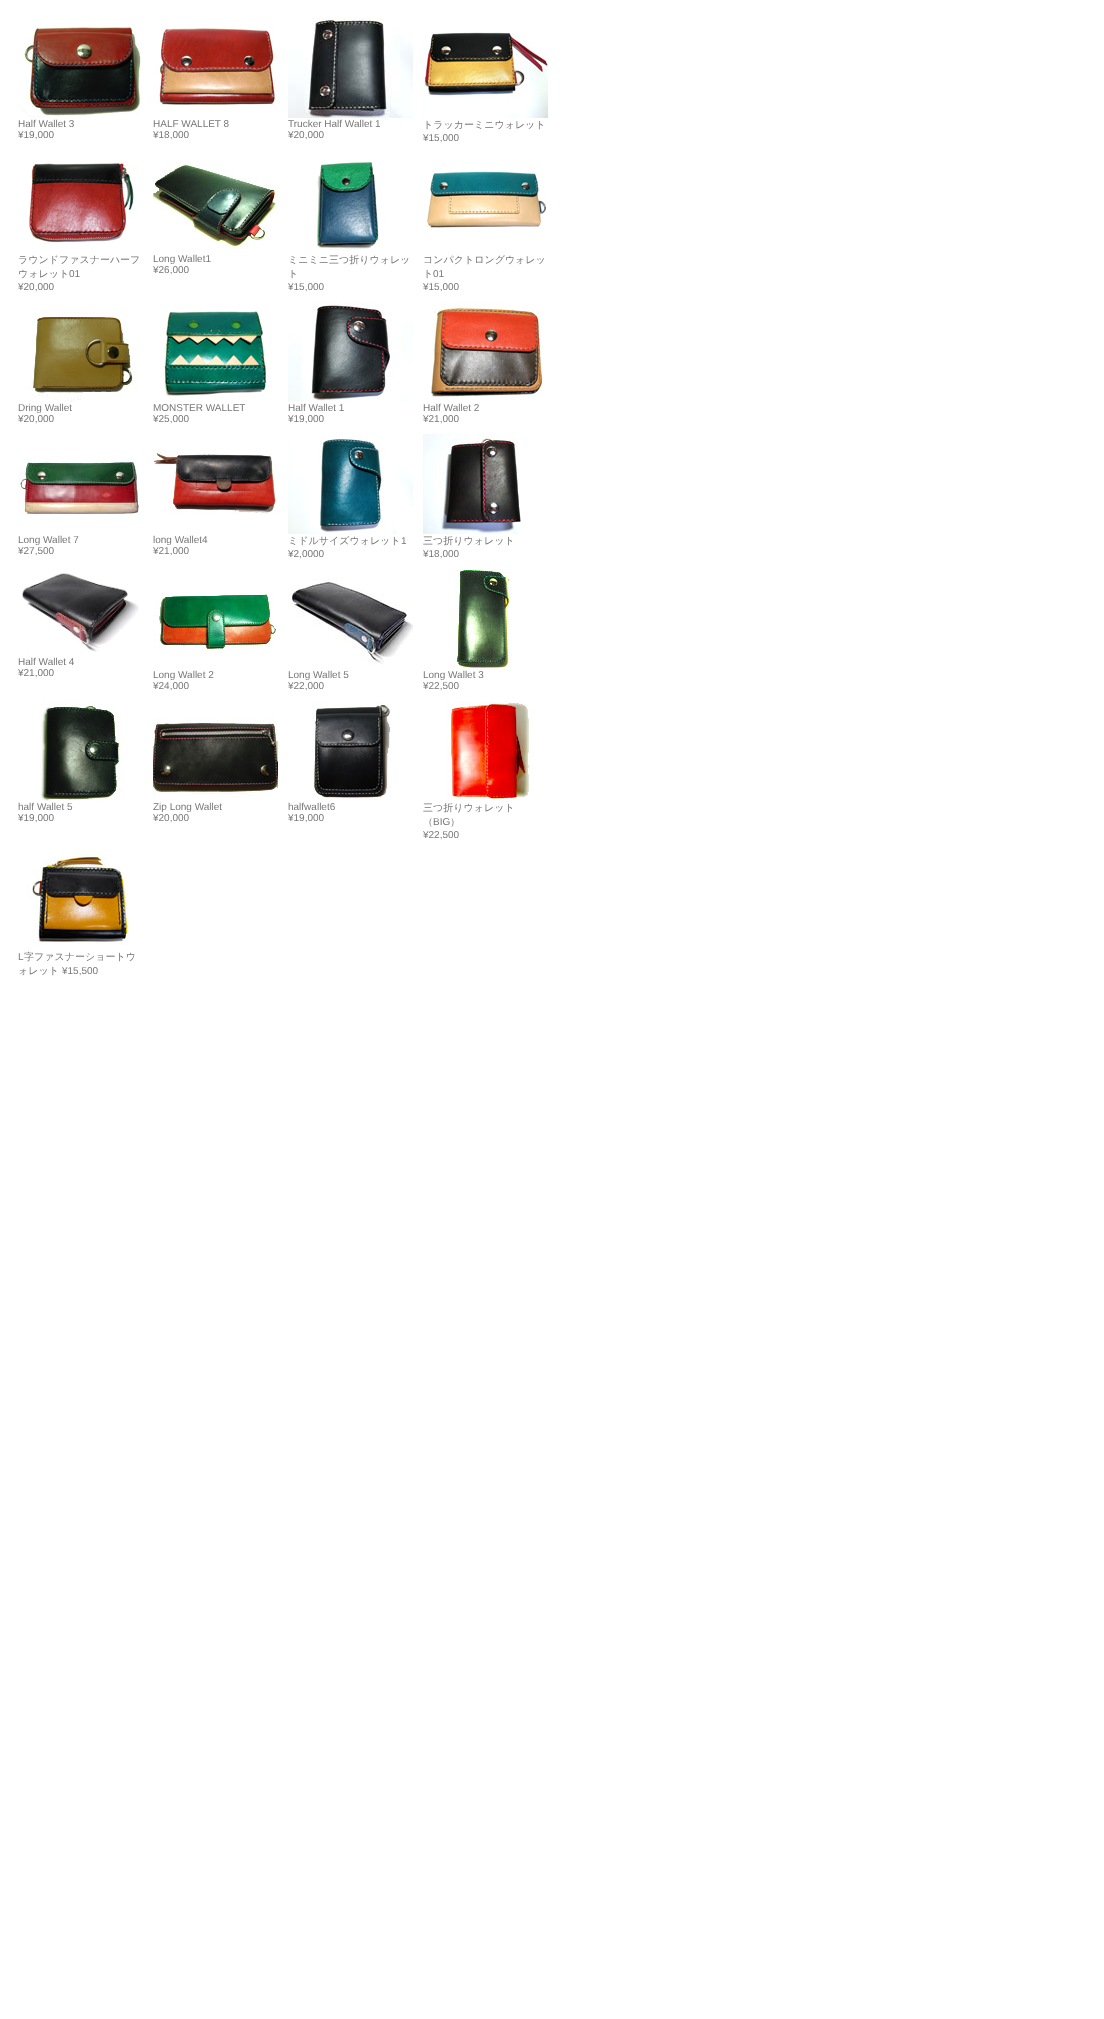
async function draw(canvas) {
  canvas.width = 1104;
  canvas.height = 2019;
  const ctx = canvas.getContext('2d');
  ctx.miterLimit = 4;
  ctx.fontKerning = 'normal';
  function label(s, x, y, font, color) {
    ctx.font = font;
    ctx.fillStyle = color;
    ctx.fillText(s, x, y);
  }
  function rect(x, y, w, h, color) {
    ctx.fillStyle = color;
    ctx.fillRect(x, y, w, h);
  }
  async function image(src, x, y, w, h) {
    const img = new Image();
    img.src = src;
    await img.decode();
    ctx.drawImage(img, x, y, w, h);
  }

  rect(0, 0, 1104, 2019, '#fff');
  await image('assets/img1.png', 18, 26, 125, 92);
  label('Half Wallet 3', 18, 127, '10px Liberation Sans', '#777');
  label('¥19,000', 18, 138, '10px Liberation Sans', '#777');
  await image('assets/img2.png', 153, 26, 125, 80);
  label('HALF WALLET 8', 153, 127, '10px Liberation Sans', '#777');
  label('¥18,000', 153, 138, '10px Liberation Sans', '#777');
  await image('assets/img3.png', 288, 18, 125, 100);
  label('Trucker Half Wallet 1', 288, 127, '10px Liberation Sans', '#777');
  label('¥20,000', 288, 138, '10px Liberation Sans', '#777');
  await image('assets/img4.png', 423, 32, 125, 86);
  label('トラッカーミニウォレット', 423, 128, '500 10px WenQuanYi Zen Hei', '#777');
  label('¥15,000', 423, 141, '10px Liberation Sans', '#777');
  await image('assets/img5.png', 29, 163, 105, 80);
  label('ラウンドファスナーハーフ', 18, 263, '500 10px WenQuanYi Zen Hei', '#777');
  label('ウォレット', 18, 277, '500 10px WenQuanYi Zen Hei', '#777');
  label('01', 69, 277, '10px Liberation Sans', '#777');
  label('¥20,000', 18, 290, '10px Liberation Sans', '#777');
  await image('assets/img6.png', 153, 161, 125, 88);
  label('Long Wallet1', 153, 262, '10px Liberation Sans', '#777');
  label('¥26,000', 153, 273, '10px Liberation Sans', '#777');
  await image('assets/img7.png', 317, 162, 62, 87);
  label('ミニミニ三つ折りウォレッ', 288, 263, '500 10px WenQuanYi Zen Hei', '#777');
  label('ト', 288, 277, '500 10px WenQuanYi Zen Hei', '#777');
  label('¥15,000', 288, 290, '10px Liberation Sans', '#777');
  await image('assets/img8.png', 427, 171, 119, 57);
  label('コンパクトロングウォレッ', 423, 263, '500 10px WenQuanYi Zen Hei', '#777');
  label('ト', 423, 277, '500 10px WenQuanYi Zen Hei', '#777');
  label('01', 433, 277, '10px Liberation Sans', '#777');
  label('¥15,000', 423, 290, '10px Liberation Sans', '#777');
  await image('assets/img9.png', 27, 310, 111, 92);
  label('Dring Wallet', 18, 411, '10px Liberation Sans', '#777');
  label('¥20,000', 18, 422, '10px Liberation Sans', '#777');
  await image('assets/img10.png', 164, 311, 102, 85);
  label('MONSTER WALLET', 153, 411, '10px Liberation Sans', '#777');
  label('¥25,000', 153, 422, '10px Liberation Sans', '#777');
  await image('assets/img11.png', 288, 302, 125, 100);
  label('Half Wallet 1', 288, 411, '10px Liberation Sans', '#777');
  label('¥19,000', 288, 422, '10px Liberation Sans', '#777');
  await image('assets/img12.png', 431, 302, 112, 96);
  label('Half Wallet 2', 423, 411, '10px Liberation Sans', '#777');
  label('¥21,000', 423, 422, '10px Liberation Sans', '#777');
  await image('assets/img13.png', 18, 458, 122, 56);
  label('Long Wallet 7', 18, 543, '10px Liberation Sans', '#777');
  label('¥27,500', 18, 554, '10px Liberation Sans', '#777');
  await image('assets/img14.png', 153, 450, 125, 64);
  label('long Wallet4', 153, 543, '10px Liberation Sans', '#777');
  label('¥21,000', 153, 554, '10px Liberation Sans', '#777');
  await image('assets/img15.png', 288, 434, 125, 100);
  label('ミドルサイズウォレット', 288, 544, '500 10px WenQuanYi Zen Hei', '#777');
  label('1', 401, 544, '10px Liberation Sans', '#777');
  label('¥2,0000', 288, 557, '10px Liberation Sans', '#777');
  await image('assets/img16.png', 423, 434, 99, 100);
  label('三つ折りウォレット', 423, 544, '500 10px WenQuanYi Zen Hei', '#777');
  label('¥18,000', 423, 557, '10px Liberation Sans', '#777');
  await image('assets/img17.png', 22, 573, 117, 79);
  label('Half Wallet 4', 18, 665, '10px Liberation Sans', '#777');
  label('¥21,000', 18, 676, '10px Liberation Sans', '#777');
  await image('assets/img18.png', 154, 593, 124, 56);
  label('Long Wallet 2', 153, 678, '10px Liberation Sans', '#777');
  label('¥24,000', 153, 689, '10px Liberation Sans', '#777');
  await image('assets/img19.png', 288, 577, 125, 88);
  label('Long Wallet 5', 288, 678, '10px Liberation Sans', '#777');
  label('¥22,000', 288, 689, '10px Liberation Sans', '#777');
  await image('assets/img20.png', 455, 569, 56, 100);
  label('Long Wallet 3', 423, 678, '10px Liberation Sans', '#777');
  label('¥22,500', 423, 689, '10px Liberation Sans', '#777');
  await image('assets/img21.png', 40, 701, 82, 100);
  label('half Wallet 5', 18, 810, '10px Liberation Sans', '#777');
  label('¥19,000', 18, 821, '10px Liberation Sans', '#777');
  await image('assets/img22.png', 153, 717, 125, 80);
  label('Zip Long Wallet', 153, 810, '10px Liberation Sans', '#777');
  label('¥20,000', 153, 821, '10px Liberation Sans', '#777');
  await image('assets/img23.png', 312, 701, 80, 97);
  label('halfwallet6', 288, 810, '10px Liberation Sans', '#777');
  label('¥19,000', 288, 821, '10px Liberation Sans', '#777');
  await image('assets/img24.png', 447, 701, 88, 100);
  label('三つ折りウォレット', 423, 811, '500 10px WenQuanYi Zen Hei', '#777');
  label('（', 423, 825, '500 10px WenQuanYi Zen Hei', '#777');
  label('BIG', 433, 825, '10px Liberation Sans', '#777');
  label('）', 450, 825, '500 10px WenQuanYi Zen Hei', '#777');
  label('¥22,500', 423, 838, '10px Liberation Sans', '#777');
  await image('assets/img25.png', 26, 850, 104, 96);
  label('L', 18, 960, '10px Liberation Sans', '#777');
  label('字ファスナーショートウ', 24, 960, '500 10px WenQuanYi Zen Hei', '#777');
  label('ォレット', 18, 974, '500 10px WenQuanYi Zen Hei', '#777');
  label('¥15,500', 62, 974, '10px Liberation Sans', '#777');
}

draw(document.querySelector('canvas'));
